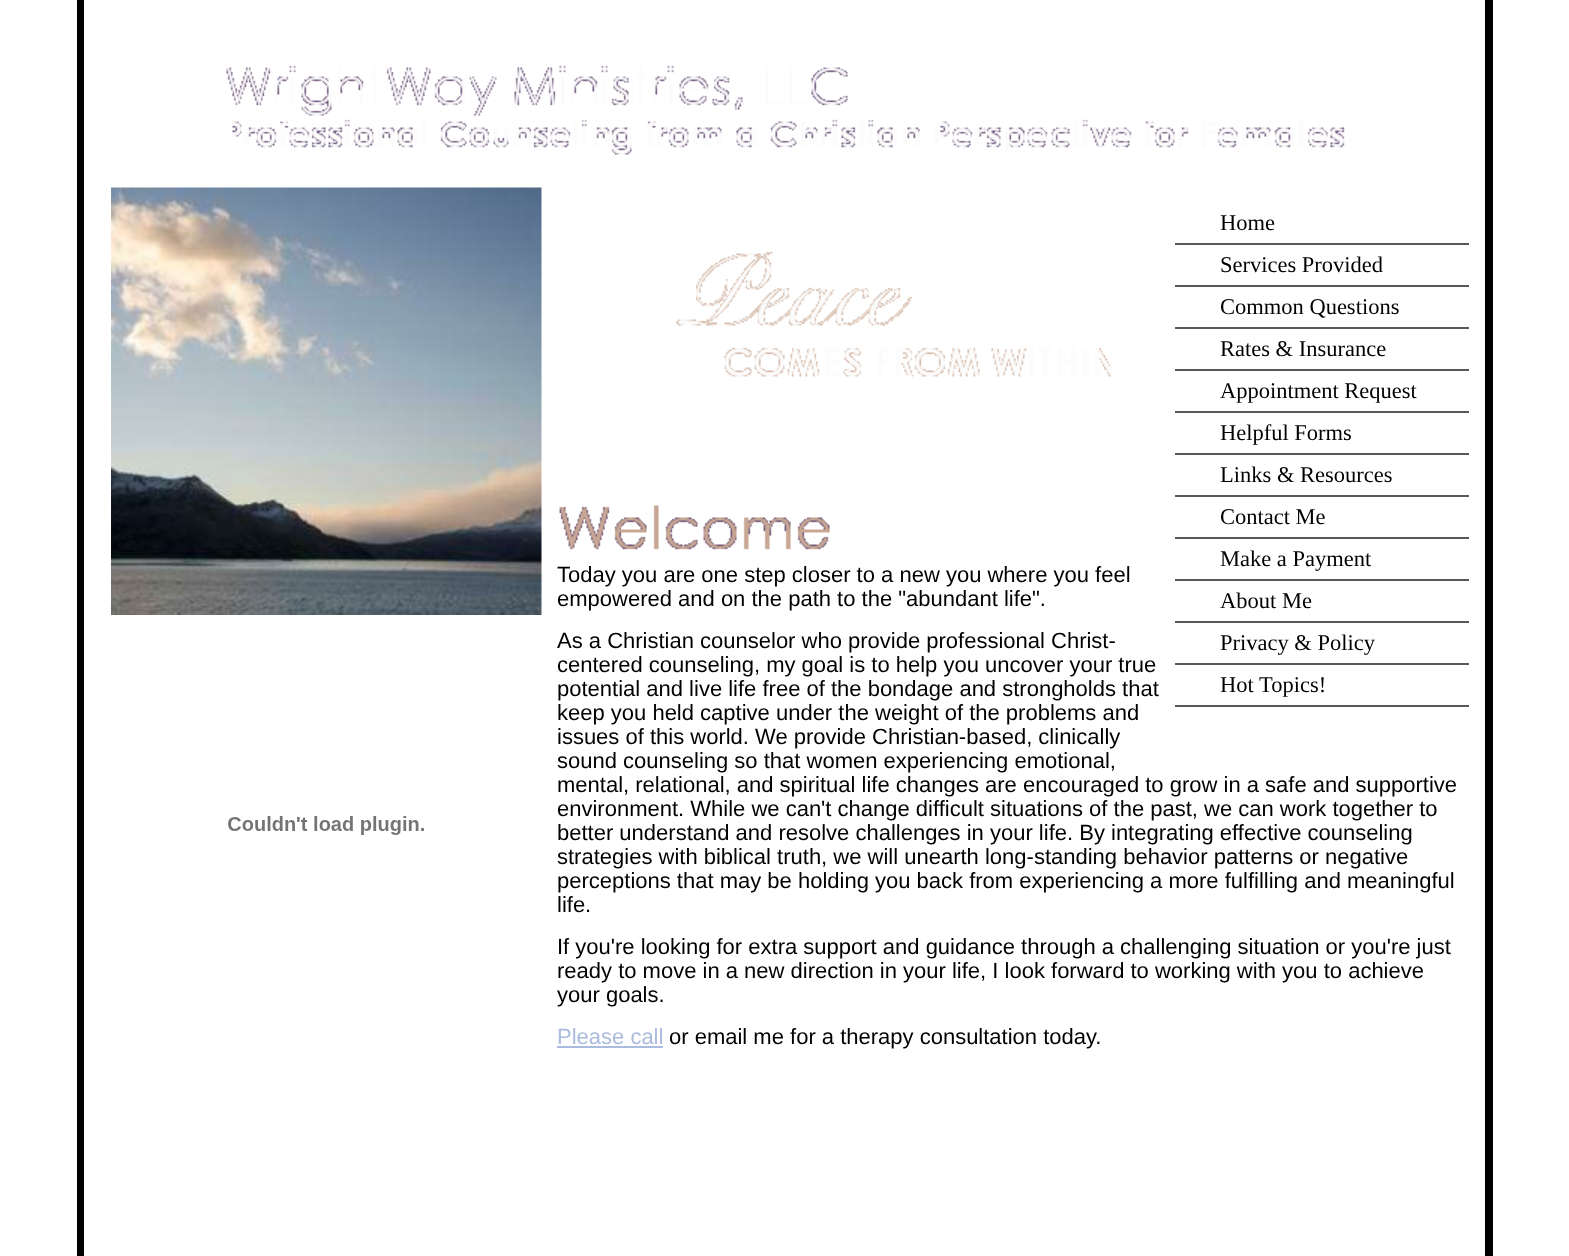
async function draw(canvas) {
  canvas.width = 1569;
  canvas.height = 1256;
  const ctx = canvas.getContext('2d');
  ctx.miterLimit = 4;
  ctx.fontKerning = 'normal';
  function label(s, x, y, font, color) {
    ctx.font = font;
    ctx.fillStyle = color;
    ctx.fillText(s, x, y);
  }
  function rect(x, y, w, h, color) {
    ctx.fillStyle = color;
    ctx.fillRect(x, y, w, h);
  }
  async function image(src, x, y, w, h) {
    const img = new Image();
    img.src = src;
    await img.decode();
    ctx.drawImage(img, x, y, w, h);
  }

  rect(0, 0, 1569, 1256, '#fff');
  rect(1485, 0, 8, 1256, '#000');
  rect(77, 0, 7, 1256, '#000');
  await image('assets/img1.png', 226, 65, 622, 51);
  await image('assets/img2.png', 232, 119, 1113, 36);
  await image('assets/img3.png', 111, 187, 431, 428);
  await image('assets/img4.png', 228, 816, 196, 19);
  await image('assets/img5.png', 559, 505, 271, 45);
  rect(1175, 243, 294, 2, '#585858');
  label('Home', 1220, 230, '22.5px Liberation Serif', '#000');
  rect(1175, 285, 294, 2, '#585858');
  label('Services Provided', 1220, 272, '22.5px Liberation Serif', '#000');
  rect(1175, 327, 294, 2, '#585858');
  label('Common Questions', 1220, 314, '22.5px Liberation Serif', '#000');
  rect(1175, 369, 294, 2, '#585858');
  label('Rates & Insurance', 1220, 356, '22.5px Liberation Serif', '#000');
  rect(1175, 411, 294, 2, '#585858');
  label('Appointment Request', 1220, 398, '22.5px Liberation Serif', '#000');
  rect(1175, 453, 294, 2, '#585858');
  label('Helpful Forms', 1220, 440, '22.5px Liberation Serif', '#000');
  rect(1175, 495, 294, 2, '#585858');
  label('Links & Resources', 1220, 482, '22.5px Liberation Serif', '#000');
  rect(1175, 537, 294, 2, '#585858');
  label('Contact Me', 1220, 524, '22.5px Liberation Serif', '#000');
  rect(1175, 579, 294, 2, '#585858');
  label('Make a Payment', 1220, 566, '22.5px Liberation Serif', '#000');
  rect(1175, 621, 294, 2, '#585858');
  label('About Me', 1220, 608, '22.5px Liberation Serif', '#000');
  rect(1175, 663, 294, 2, '#585858');
  label('Privacy & Policy', 1220, 650, '22.5px Liberation Serif', '#000');
  rect(1175, 705, 294, 2, '#585858');
  label('Hot Topics!', 1220, 692, '22.5px Liberation Serif', '#000');
  label('Today you are one step closer to a new you where you feel', 557, 582, '22px Liberation Sans', '#000');
  label('empowered and on the path to the "abundant life".', 557, 606, '22px Liberation Sans', '#000');
  label('As a Christian counselor who provide professional Christ-', 557, 648, '22px Liberation Sans', '#000');
  label('centered counseling, my goal is to help you uncover your true', 557, 672, '22px Liberation Sans', '#000');
  label('potential and live life free of the bondage and strongholds that', 557, 696, '22px Liberation Sans', '#000');
  label('keep you held captive under the weight of the problems and', 557, 720, '22px Liberation Sans', '#000');
  label('issues of this world. We provide Christian-based, clinically', 557, 744, '22px Liberation Sans', '#000');
  label('sound counseling so that women experiencing emotional,', 557, 768, '22px Liberation Sans', '#000');
  label('mental, relational, and spiritual life changes are encouraged to grow in a safe and supportive', 557, 792, '22px Liberation Sans', '#000');
  label('environment. While we can\'t change difficult situations of the past, we can work together to', 557, 816, '22px Liberation Sans', '#000');
  label('better understand and resolve challenges in your life. By integrating effective counseling', 557, 840, '22px Liberation Sans', '#000');
  label('strategies with biblical truth, we will unearth long-standing behavior patterns or negative', 557, 864, '22px Liberation Sans', '#000');
  label('perceptions that may be holding you back from experiencing a more fulfilling and meaningful', 557, 888, '22px Liberation Sans', '#000');
  label('life.', 557, 912, '22px Liberation Sans', '#000');
  label('If you\'re looking for extra support and guidance through a challenging situation or you\'re just', 557, 954, '22px Liberation Sans', '#000');
  label('ready to move in a new direction in your life, I look forward to working with you to achieve', 557, 978, '22px Liberation Sans', '#000');
  label('your goals.', 557, 1002, '22px Liberation Sans', '#000');
  label('Please call', 557, 1044, '22px Liberation Sans', '#abd');
  rect(557, 1046, 106, 2, '#abd');
  label('or email me for a therapy consultation today.', 669, 1044, '22px Liberation Sans', '#000');
  await image('assets/img6.png', 676, 251, 436, 126);
}

draw(document.querySelector('canvas'));
